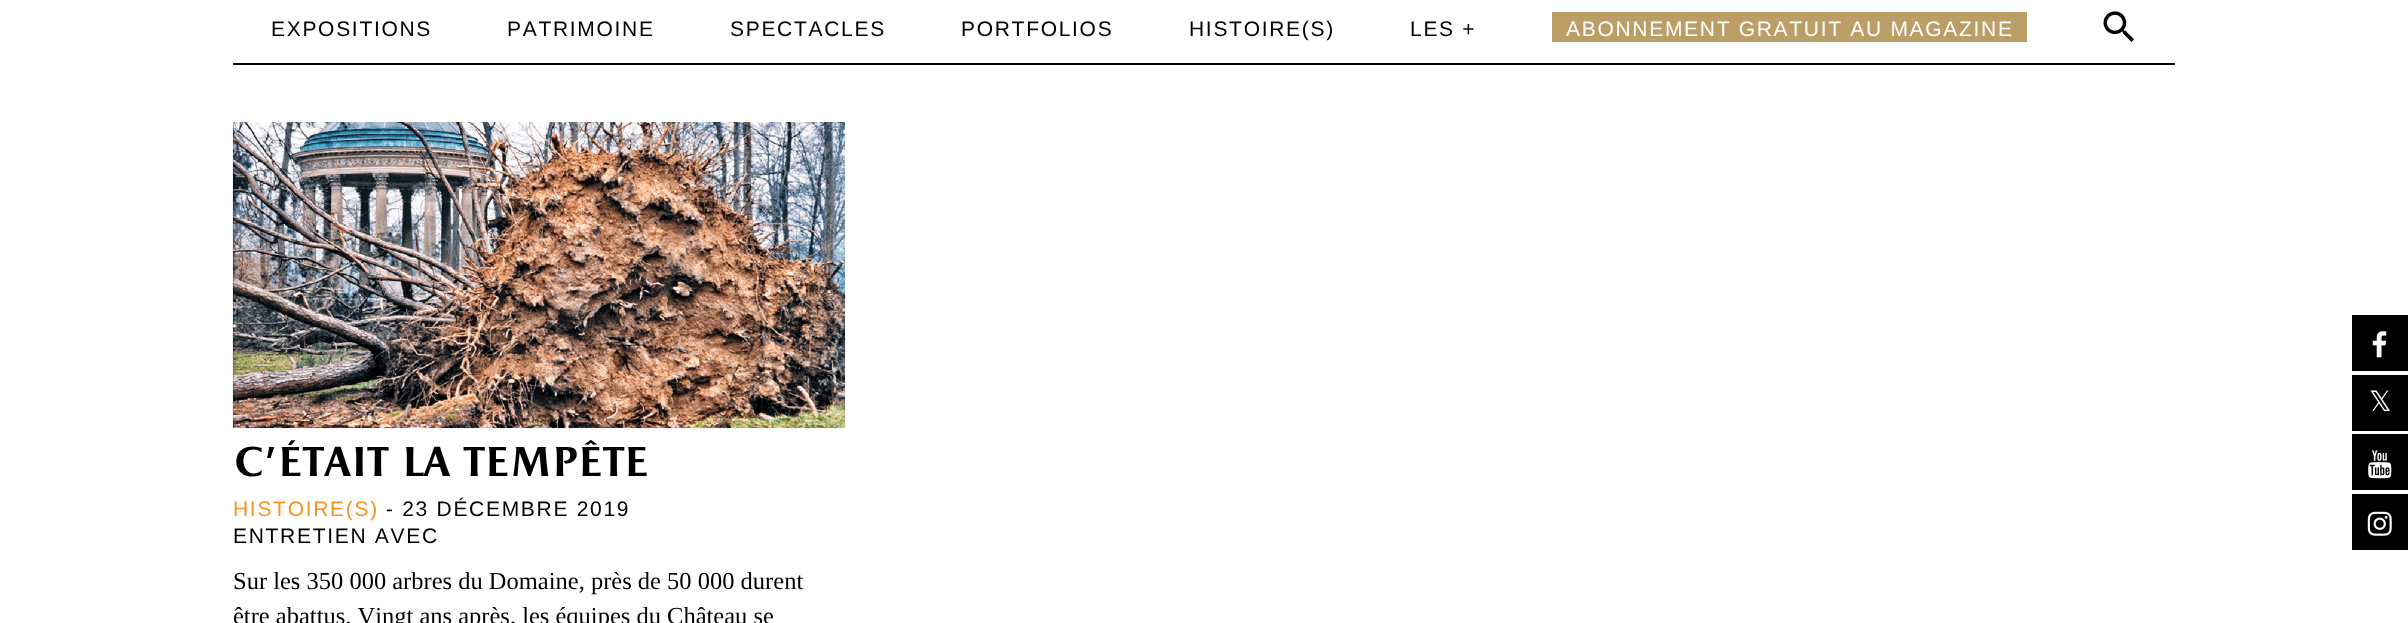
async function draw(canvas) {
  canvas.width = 2408;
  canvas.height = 623;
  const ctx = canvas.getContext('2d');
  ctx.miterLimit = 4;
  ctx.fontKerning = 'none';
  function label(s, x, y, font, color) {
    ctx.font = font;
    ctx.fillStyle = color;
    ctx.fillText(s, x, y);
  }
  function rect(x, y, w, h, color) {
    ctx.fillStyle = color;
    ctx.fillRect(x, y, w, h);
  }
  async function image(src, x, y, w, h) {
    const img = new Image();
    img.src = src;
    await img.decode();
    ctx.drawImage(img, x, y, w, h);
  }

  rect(0, 0, 2408, 623, '#fff');
  rect(233, 63, 1942, 2, '#000');
  ctx.letterSpacing = '1.7px';
  label('EXPOSITIONS', 271, 36, '21px Liberation Sans', '#000');
  label('PATRIMOINE', 507, 36, '21px Liberation Sans', '#000');
  label('SPECTACLES', 730, 36, '21px Liberation Sans', '#000');
  label('PORTFOLIOS', 961, 36, '21px Liberation Sans', '#000');
  label('HISTOIRE(S)', 1189, 36, '21px Liberation Sans', '#000');
  label('LES +', 1410, 36, '21px Liberation Sans', '#000');
  rect(1552, 12, 475, 30, '#ba9e66');
  label('ABONNEMENT GRATUIT AU MAGAZINE', 1566, 36, '21px Liberation Sans', '#fff');
  await image('assets/img1.png', 2103, 11, 31, 31);
  rect(2352, 315, 56, 56, '#000');
  await image('assets/img2.png', 2372, 331, 15, 27);
  rect(2352, 375, 56, 56, '#000');
  ctx.letterSpacing = '0px';
  label('𝕏', 2369, 411, '28px DejaVu Sans', '#fff');
  rect(2352, 434, 56, 56, '#000');
  await image('assets/img3.png', 2368, 450, 24, 29);
  rect(2352, 494, 56, 56, '#000');
  await image('assets/img4.png', 2367, 511, 25, 25);
  await image('assets/img5.png', 232, 122, 614, 307);
  label('c’était la tempête', 233, 476, 'bold 42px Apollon', '#000');
  ctx.letterSpacing = '1.7px';
  label('HISTOIRE(S)', 233, 516, '21px Liberation Sans', '#f7931e');
  label('- 23 DÉCEMBRE 2019', 386, 516, '21px Liberation Sans', '#000');
  label('ENTRETIEN AVEC', 233, 543, '21px Liberation Sans', '#000');
  ctx.letterSpacing = '0px';
  label('Sur les 350 000 arbres du Domaine, près de 50 000 durent', 233, 589, '24.5px Liberation Serif', '#000');
  label('être abattus. Vingt ans après, les équipes du Château se', 233, 624, '24.5px Liberation Serif', '#000');
}

draw(document.querySelector('canvas'));
